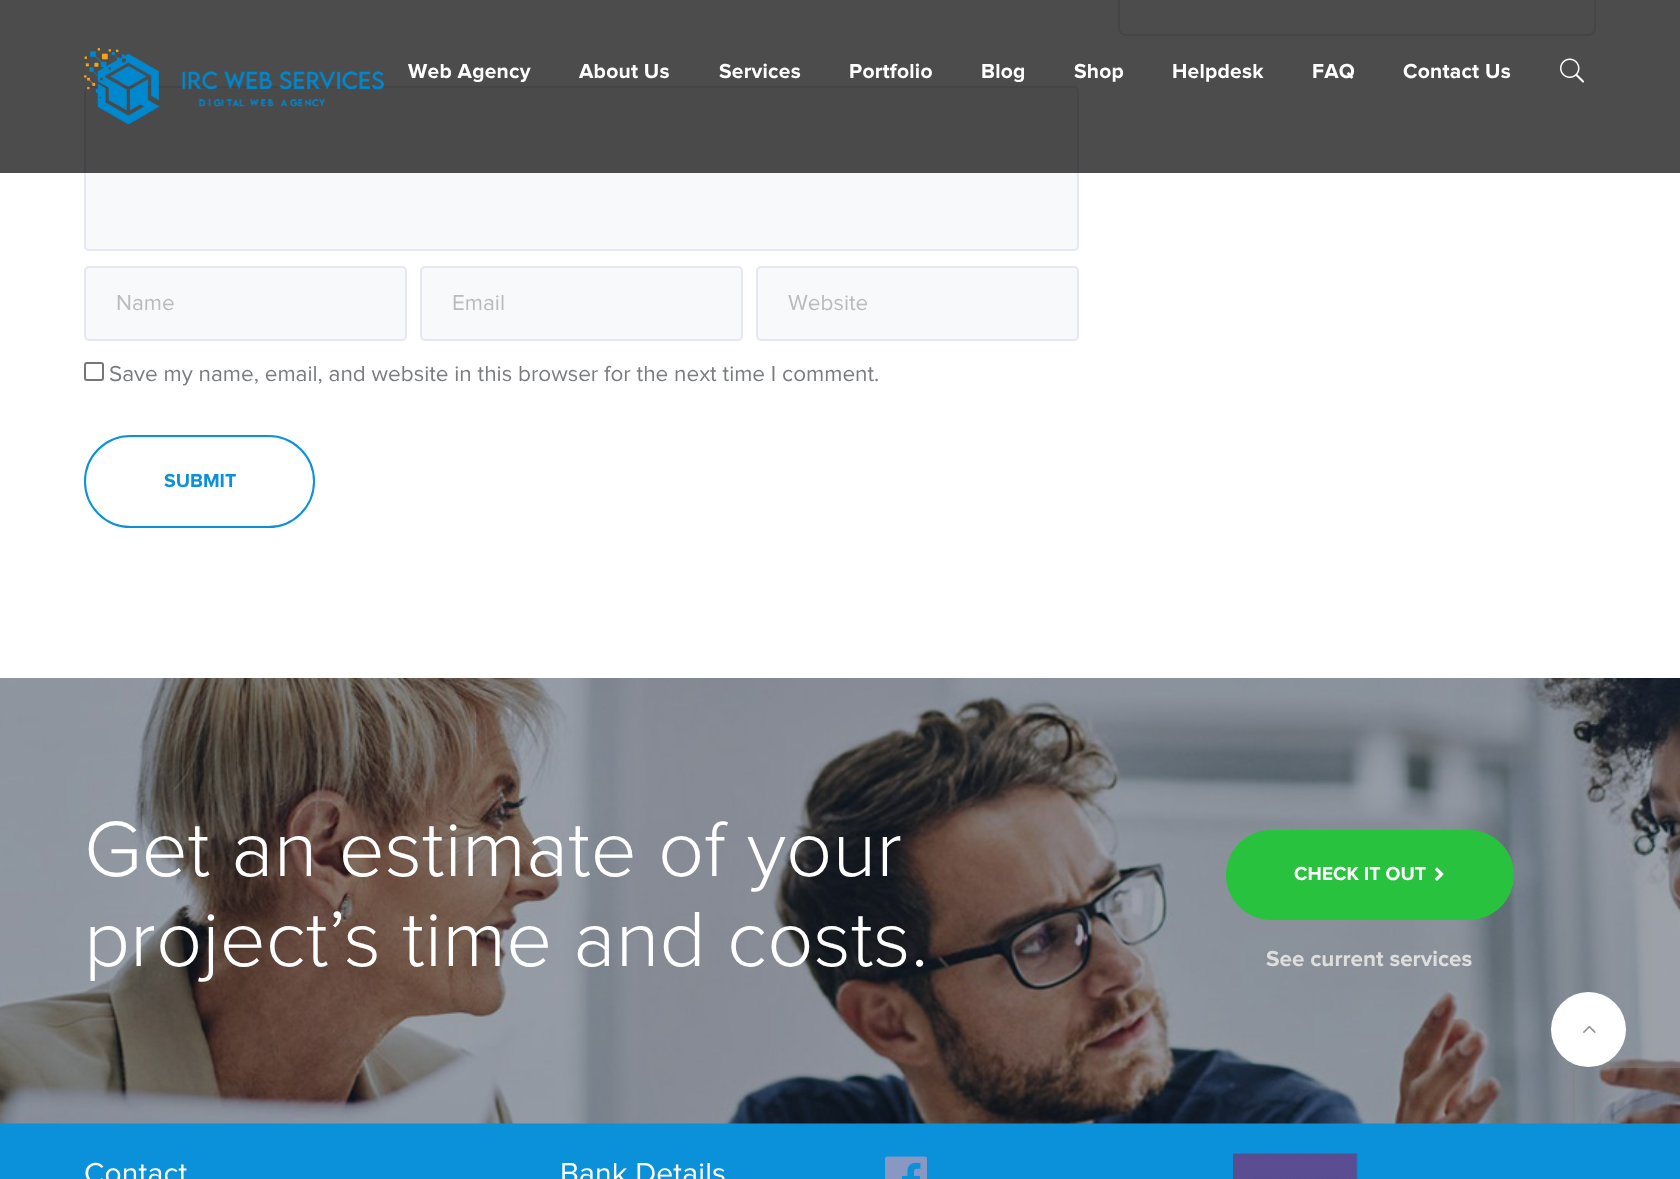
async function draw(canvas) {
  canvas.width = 1680;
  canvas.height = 1179;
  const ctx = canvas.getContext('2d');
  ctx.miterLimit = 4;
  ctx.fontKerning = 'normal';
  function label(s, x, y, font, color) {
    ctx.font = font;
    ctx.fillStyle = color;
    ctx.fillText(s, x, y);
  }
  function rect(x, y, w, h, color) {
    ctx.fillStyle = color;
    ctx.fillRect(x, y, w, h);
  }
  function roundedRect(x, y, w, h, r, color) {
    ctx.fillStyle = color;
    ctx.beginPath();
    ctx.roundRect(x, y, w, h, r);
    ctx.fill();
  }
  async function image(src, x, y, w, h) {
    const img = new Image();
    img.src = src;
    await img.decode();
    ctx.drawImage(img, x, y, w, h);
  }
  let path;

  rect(0, 0, 1680, 1179, '#fff');
  ctx.beginPath();
  ctx.roundRect(1119, -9, 476, 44, 7);
  ctx.strokeStyle = '#e7e7e7';
  ctx.lineWidth = 2;
  ctx.stroke();
  ctx.fillStyle = '#f7f9fb';
  ctx.beginPath();
  ctx.roundRect(85, 87, 993, 163, 4);
  ctx.fill();
  ctx.strokeStyle = '#e5e7f3';
  ctx.stroke();
  rect(0, 0, 1680, 173, '#000000b3');
  await image('assets/img1.png', 84, 48, 300, 77);
  ctx.letterSpacing = '0.25px';
  label('Web Agency', 408, 78, 'bold 21px Proxima Nova', '#fff');
  label('About Us', 579, 78, 'bold 21px Proxima Nova', '#fff');
  label('Services', 719, 78, 'bold 21px Proxima Nova', '#fff');
  label('Portfolio', 849, 78, 'bold 21px Proxima Nova', '#fff');
  label('Blog', 981, 78, 'bold 21px Proxima Nova', '#fff');
  label('Shop', 1074, 78, 'bold 21px Proxima Nova', '#fff');
  label('Helpdesk', 1172, 78, 'bold 21px Proxima Nova', '#fff');
  label('FAQ', 1312, 78, 'bold 21px Proxima Nova', '#fff');
  label('Contact Us', 1403, 78, 'bold 21px Proxima Nova', '#fff');
  await image('assets/img2.png', 1560, 58, 25, 25);
  ctx.fillStyle = '#f7f9fb';
  ctx.beginPath();
  ctx.roundRect(85, 267, 321, 73, 4);
  ctx.fill();
  ctx.stroke();
  ctx.letterSpacing = '0px';
  label('Name', 116, 310, '22.5px Proxima Nova', '#bbb');
  ctx.fillStyle = '#f7f9fb';
  ctx.beginPath();
  ctx.roundRect(421, 267, 321, 73, 4);
  ctx.fill();
  ctx.stroke();
  label('Email', 452, 310, '22.5px Proxima Nova', '#bbb');
  ctx.fillStyle = '#f7f9fb';
  ctx.beginPath();
  ctx.roundRect(757, 267, 321, 73, 4);
  ctx.fill();
  ctx.stroke();
  label('Website', 788, 310, '22.5px Proxima Nova', '#bbb');
  ctx.beginPath();
  ctx.roundRect(85, 363, 18, 17, 2);
  ctx.strokeStyle = '#767676';
  ctx.stroke();
  label('Save my name, email, and website in this browser for the next time I comment.', 109, 381, '22.5px Proxima Nova', '#7a7c7f');
  ctx.beginPath();
  ctx.roundRect(85, 436, 229, 91, 45.5);
  ctx.strokeStyle = '#0b91da';
  ctx.stroke();
  label('SUBMIT', 164, 487, 'bold 19.5px Proxima Nova', '#0b91da');
  rect(0, 1123, 1680, 1, '#0b91da');
  await image('assets/img3.png', 0, 678, 1680, 446);
  ctx.letterSpacing = '0.15px';
  label('Get an estimate of your', 84, 876, '300 81px Proxima Nova', '#fff');
  label('project’s time and costs.', 84, 966, '300 81px Proxima Nova', '#fff');
  roundedRect(1226, 830, 288, 90, 45, '#28c23e');
  ctx.letterSpacing = '0px';
  label('CHECK IT OUT', 1294, 880, 'bold 19.5px Proxima Nova', '#fff');
  await image('assets/img4.png', 1435, 867, 9, 14);
  label('See current services', 1266, 966, 'bold 22.5px Proxima Nova', '#ddd');
  ctx.save();
  path = new Path2D('M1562 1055H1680V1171H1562ZM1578 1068H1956C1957.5 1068 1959 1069.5 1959 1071V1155C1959 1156.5 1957.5 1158 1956 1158H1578C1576.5 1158 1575 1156.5 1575 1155V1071C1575 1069.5 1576.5 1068 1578 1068Z');
  ctx.clip(path, 'evenodd');
  ctx.fillStyle = '#808080';
  ctx.filter = 'blur(4px)';
  ctx.beginPath();
  ctx.roundRect(1575, 1068, 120, 90, 3);
  ctx.fill();
  ctx.filter = 'none';
  ctx.restore();
  rect(0, 1124, 1680, 55, '#0b91da');
  ctx.letterSpacing = '0.15px';
  label('Contact', 84, 1183, '30px Proxima Nova', '#fff');
  label('Bank Details', 560, 1183, '30px Proxima Nova', '#fff');
  await image('assets/img5.png', 885, 1156, 42, 23);
  await image('assets/img6.png', 1233, 1153, 125, 26);
  ctx.beginPath();
  ctx.arc(1588.5, 1029.5, 37.5, 0, 2 * Math.PI);
  ctx.fill();
  await image('assets/img7.png', 1583, 1025, 13, 8);
}

draw(document.querySelector('canvas'));
